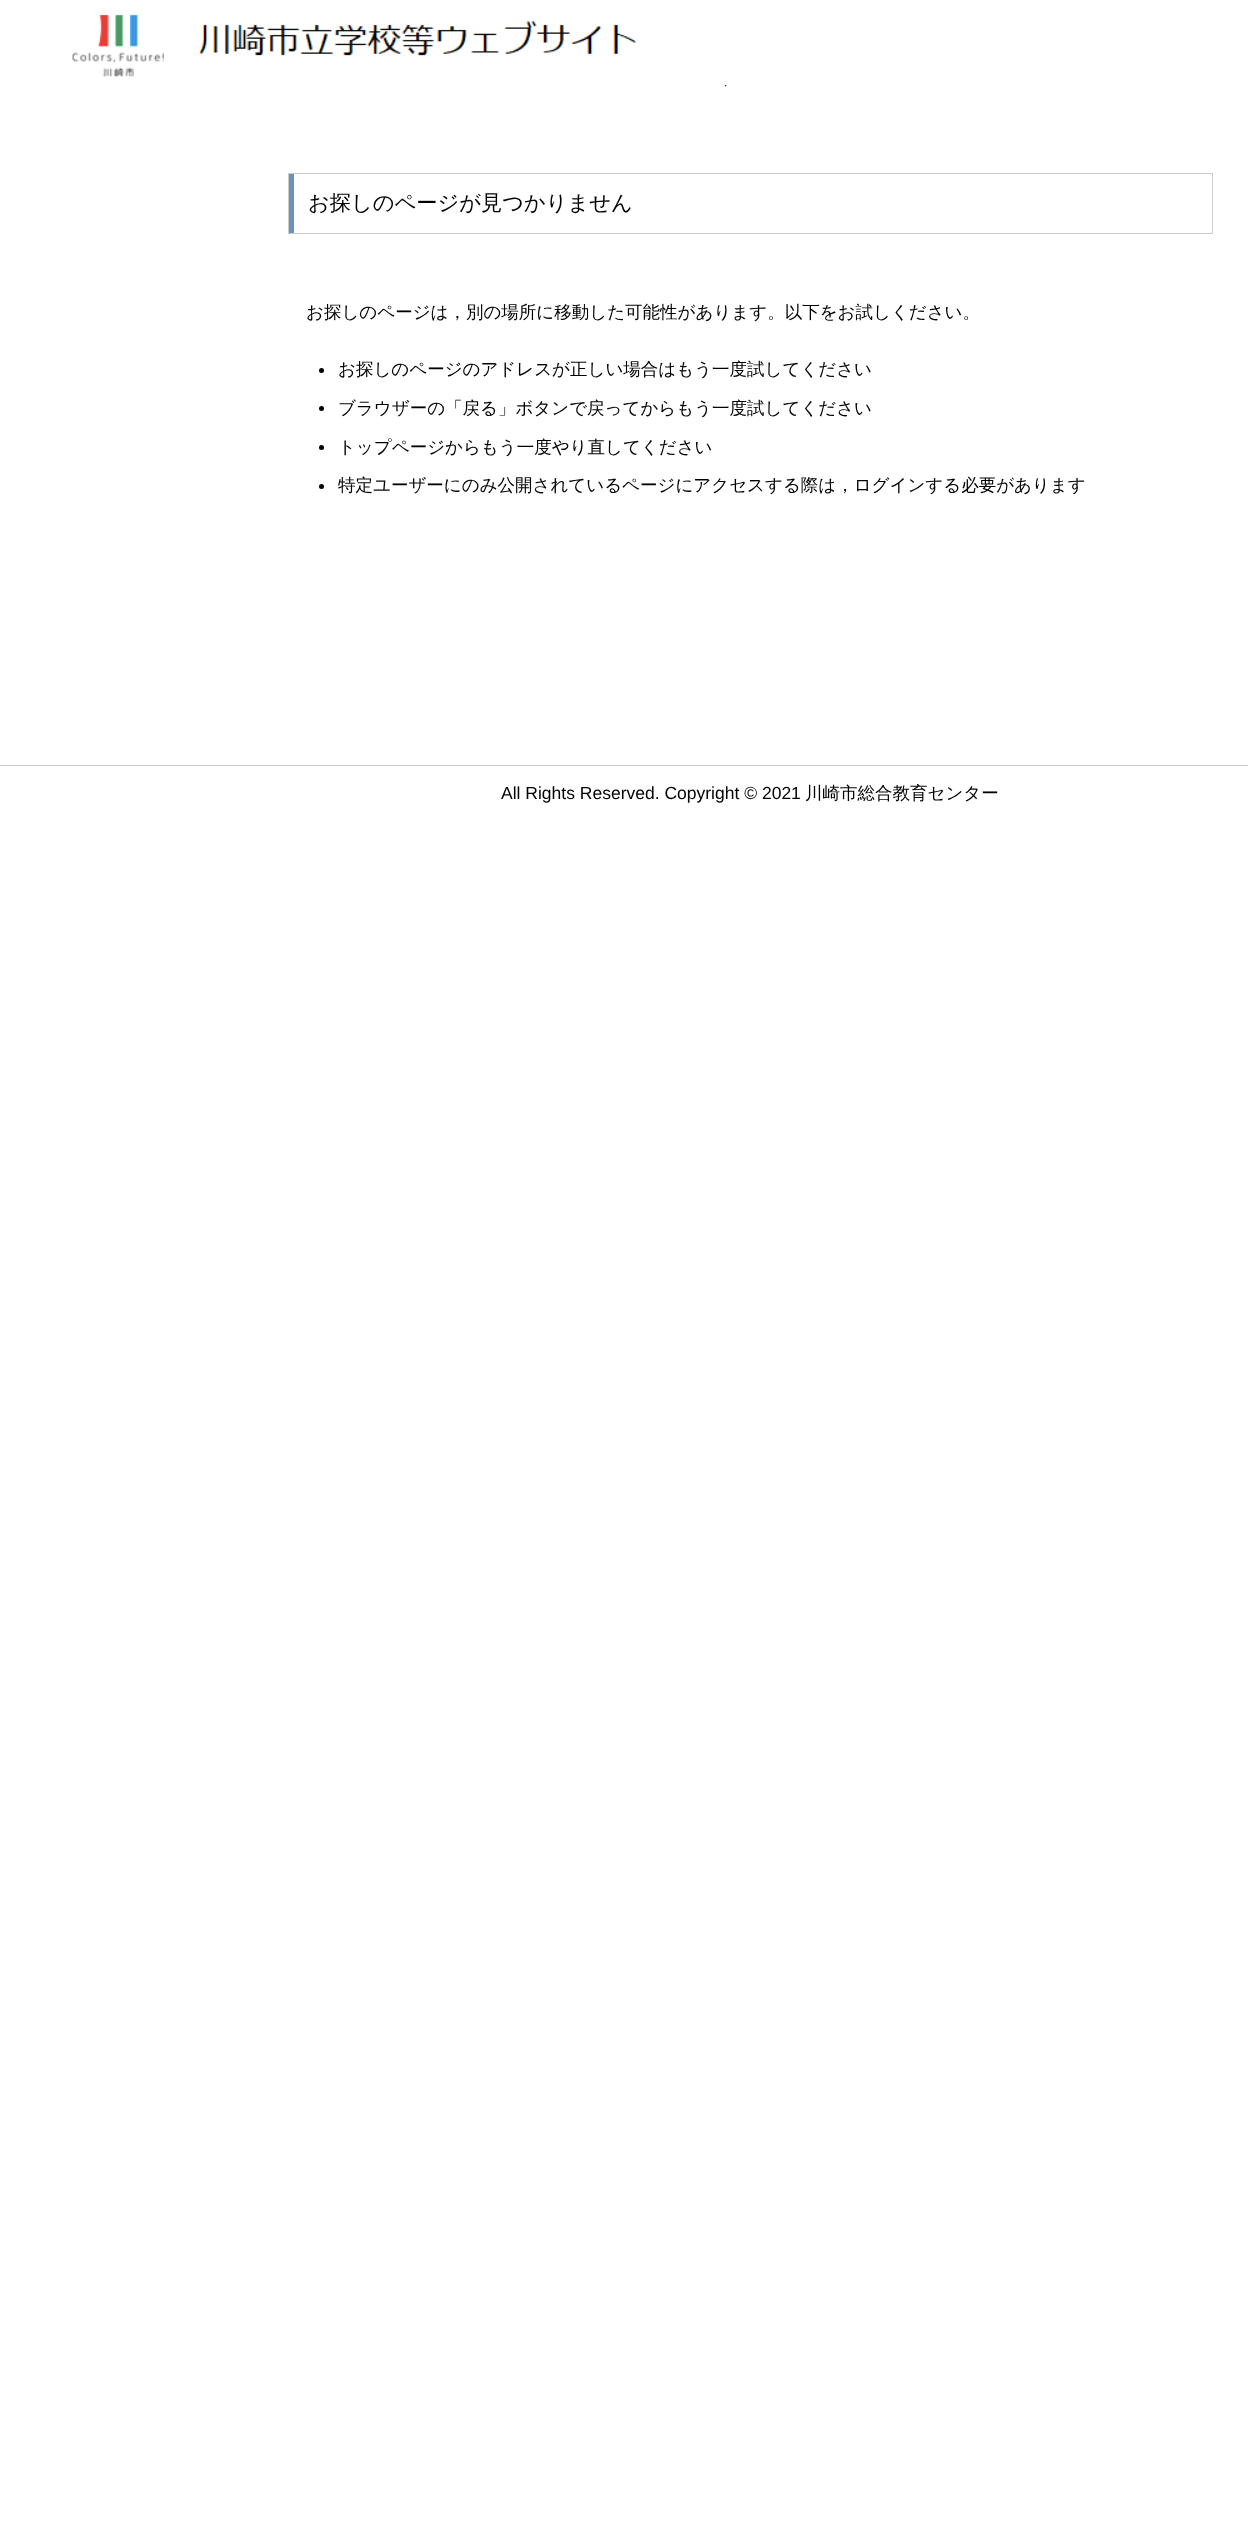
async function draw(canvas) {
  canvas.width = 1248;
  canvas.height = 2543;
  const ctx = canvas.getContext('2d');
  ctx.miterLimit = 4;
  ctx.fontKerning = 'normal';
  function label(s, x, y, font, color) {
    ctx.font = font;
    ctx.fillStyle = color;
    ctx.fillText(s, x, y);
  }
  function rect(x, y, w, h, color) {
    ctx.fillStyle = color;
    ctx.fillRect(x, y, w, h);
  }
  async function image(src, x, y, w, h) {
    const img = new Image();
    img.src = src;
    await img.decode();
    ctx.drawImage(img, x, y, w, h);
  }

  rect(0, 0, 1248, 2543, '#fff');
  await image('assets/img1.png', 72, 14, 655, 73);
  ctx.strokeStyle = '#ccc';
  ctx.strokeRect(288.5, 173.5, 924, 60);
  rect(289, 174, 5, 59, '#6c92b8');
  label('お探しのページが見つかりません', 308, 210, '500 21.25px WenQuanYi Zen Hei', '#000');
  label('お探しのページは，別の場所に移動した可能性があります。以下をお試しください。', 306, 318, '500 17.5px WenQuanYi Zen Hei', '#000');
  ctx.beginPath();
  ctx.arc(321.5, 370.5, 2.5, 0, 2 * Math.PI);
  ctx.fill();
  label('お探しのページのアドレスが正しい場合はもう一度試してください', 338, 375, '500 17.5px WenQuanYi Zen Hei', '#000');
  ctx.beginPath();
  ctx.arc(321.5, 408.5, 2.5, 0, 2 * Math.PI);
  ctx.fill();
  label('ブラウザーの「戻る」ボタンで戻ってからもう一度試してください', 338, 414, '500 17.5px WenQuanYi Zen Hei', '#000');
  ctx.beginPath();
  ctx.arc(321.5, 447.5, 2.5, 0, 2 * Math.PI);
  ctx.fill();
  label('トップページからもう一度やり直してください', 338, 453, '500 17.5px WenQuanYi Zen Hei', '#000');
  ctx.beginPath();
  ctx.arc(321.5, 486.5, 2.5, 0, 2 * Math.PI);
  ctx.fill();
  label('特定ユーザーにのみ公開されているページにアクセスする際は，ログインする必要があります', 338, 491, '500 17.5px WenQuanYi Zen Hei', '#000');
  rect(0, 765, 1248, 1, '#ccc');
  label('All Rights Reserved. Copyright © 2021', 501, 799, '17.5px Liberation Sans', '#000');
  label('川崎市総合教育センター', 805, 799, '500 17.5px WenQuanYi Zen Hei', '#000');
}

draw(document.querySelector('canvas'));
